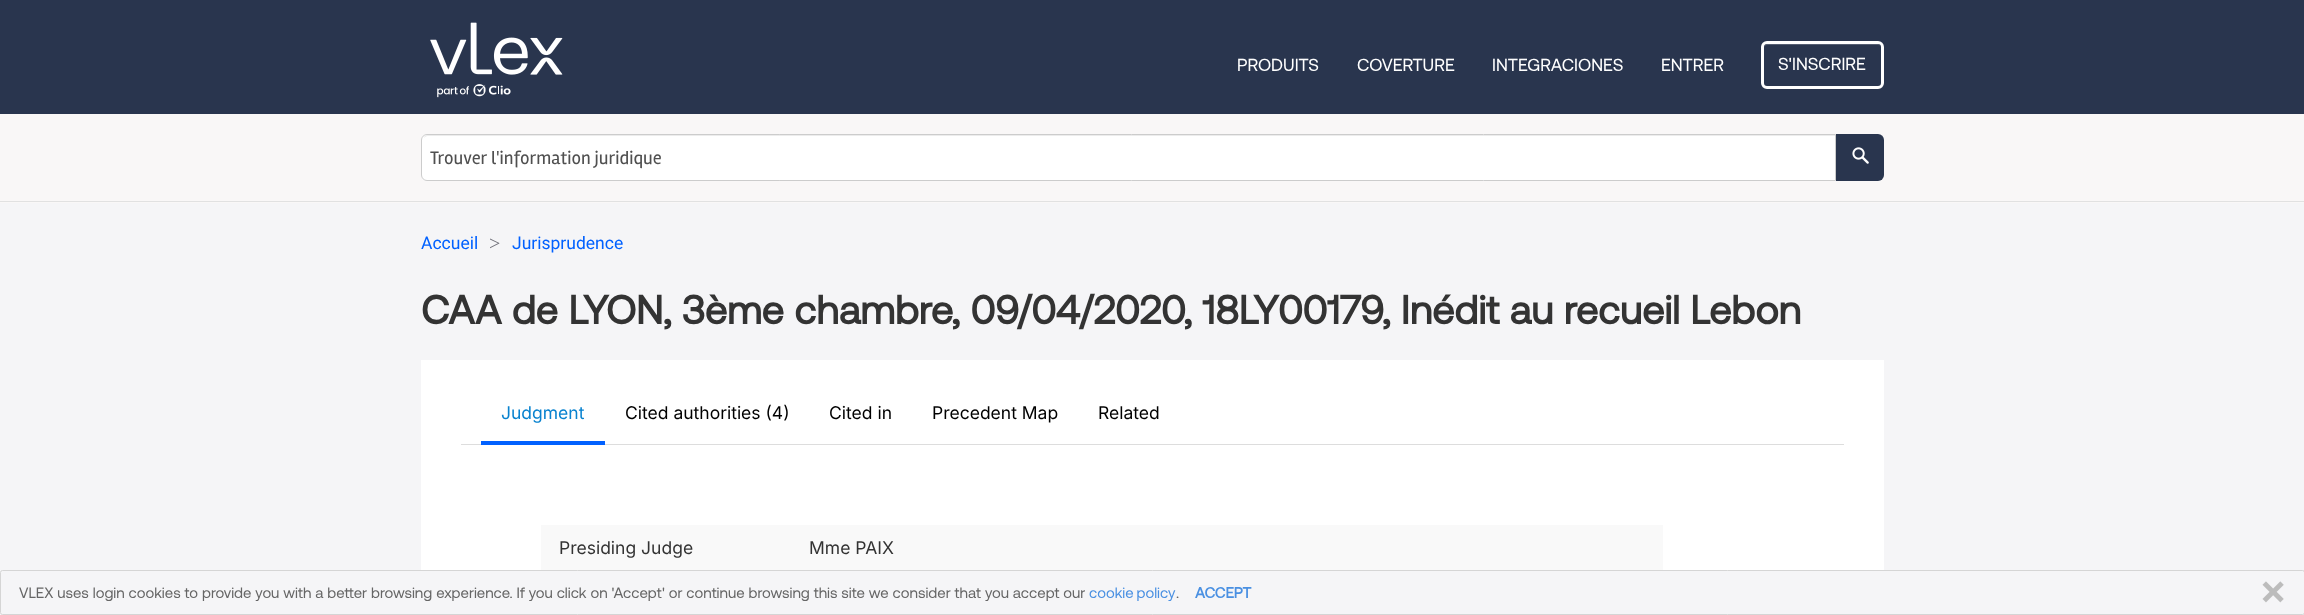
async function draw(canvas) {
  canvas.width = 2304;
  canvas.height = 615;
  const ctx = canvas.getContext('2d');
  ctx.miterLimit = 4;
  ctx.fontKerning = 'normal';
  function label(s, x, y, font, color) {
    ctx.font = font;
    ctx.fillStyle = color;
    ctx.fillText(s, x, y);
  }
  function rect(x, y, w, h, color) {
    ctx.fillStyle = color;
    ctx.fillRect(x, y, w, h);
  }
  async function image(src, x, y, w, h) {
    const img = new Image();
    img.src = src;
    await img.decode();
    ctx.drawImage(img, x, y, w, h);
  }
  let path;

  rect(0, 0, 2304, 615, '#f5f5f7');
  rect(0, 0, 2304, 114, '#29354e');
  await image('assets/img1.png', 430, 22, 133, 76);
  label('PRODUITS', 1237, 71, '17.5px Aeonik', '#fff');
  label('COVERTURE', 1357, 71, '17.5px Aeonik', '#fff');
  label('INTEGRACIONES', 1492, 71, '17.5px Aeonik', '#fff');
  label('ENTRER', 1661, 71, '17.5px Aeonik', '#fff');
  ctx.fillStyle = '#545d71';
  path = new Path2D('M1768 45H1878C1880 45 1881 47 1881 49C1881 39 1862 44 1859 44H1786C1783 44 1764 39 1764 49C1764 47 1765 45 1768 45Z');
  ctx.fill(path);
  ctx.beginPath();
  ctx.roundRect(1762.5, 42.5, 120, 45, 4.5);
  ctx.strokeStyle = '#fff';
  ctx.lineWidth = 3;
  ctx.stroke();
  label('S\'INSCRIRE', 1778, 70, '17.5px Aeonik', '#fff');
  rect(0, 114, 2304, 89, '#f9f7f7');
  rect(0, 201, 2304, 1, '#e1e1e1');
  ctx.fillStyle = '#fff';
  ctx.beginPath();
  ctx.roundRect(421, 134, 1415, 47, [6, 0, 0, 6]);
  ctx.fill();
  ctx.fillStyle = '#ececec';
  path = new Path2D('M428 136H1835V135H428C426 135 424 136 424 138C425 137 426 136 428 136Z');
  ctx.fill(path);
  ctx.beginPath();
  ctx.roundRect(421.5, 134.5, 1414, 46, [5.5, 0, 0, 5.5]);
  ctx.strokeStyle = '#ccc';
  ctx.lineWidth = 1;
  ctx.stroke();
  label('Trouver l\'information juridique', 430, 164, '18.75px Rambla', '#505050');
  ctx.fillStyle = '#29354e';
  ctx.beginPath();
  ctx.roundRect(1836, 134, 48, 47, [0, 6, 6, 0]);
  ctx.fill();
  await image('assets/img2.png', 1852, 147, 17, 17);
  label('Accueil', 421, 249, '17.5px Roboto', '#0161ff');
  label('>', 489, 250, '20px Liberation Serif', '#71717a');
  label('Jurisprudence', 512, 249, '17.5px Roboto', '#0161ff');
  label('CAA de LYON, 3ème chambre, 09/04/2020, 18LY00179, Inédit au recueil Lebon', 421, 324, 'bold 40px Aeonik', '#333');
  rect(421, 360, 1463, 210, '#fff');
  rect(461, 444, 1383, 1, '#ddd');
  label('Judgment', 501, 419, '17.5px Inter', '#0882cf');
  rect(481, 441, 124, 4, '#0161ff');
  label('Cited authorities (4)', 625, 419, '17.5px Inter', '#000');
  label('Cited in', 829, 419, '17.5px Inter', '#000');
  label('Precedent Map', 932, 419, '17.5px Inter', '#000');
  label('Related', 1098, 419, '17.5px Inter', '#000');
  rect(541, 525, 1122, 45, '#f9f9f9');
  label('Presiding Judge', 559, 554, '17.5px Inter', '#333');
  label('Mme PAIX', 809, 554, '17.5px Inter', '#333');
  ctx.beginPath();
  ctx.roundRect(0.5, 570.5, 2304, 44, 2);
  ctx.strokeStyle = '#d5d5d5';
  ctx.stroke();
  label('VLEX uses login cookies to provide you with a better browsing experience. If you click on \'Accept\' or continue browsing this site we consider that you accept our', 19, 598, '15px Aeonik', '#666');
  ctx.wordSpacing = '-1px';
  label('cookie policy', 1089, 598, '15px Aeonik', '#4a90e2');
  ctx.wordSpacing = '0px';
  label('.', 1176, 598, '15px Aeonik', '#666');
  label('ACCEPT', 1195, 598, 'bold 15px Aeonik', '#4a90e2');
  await image('assets/img3.png', 2262, 581, 22, 22);
}

draw(document.querySelector('canvas'));
